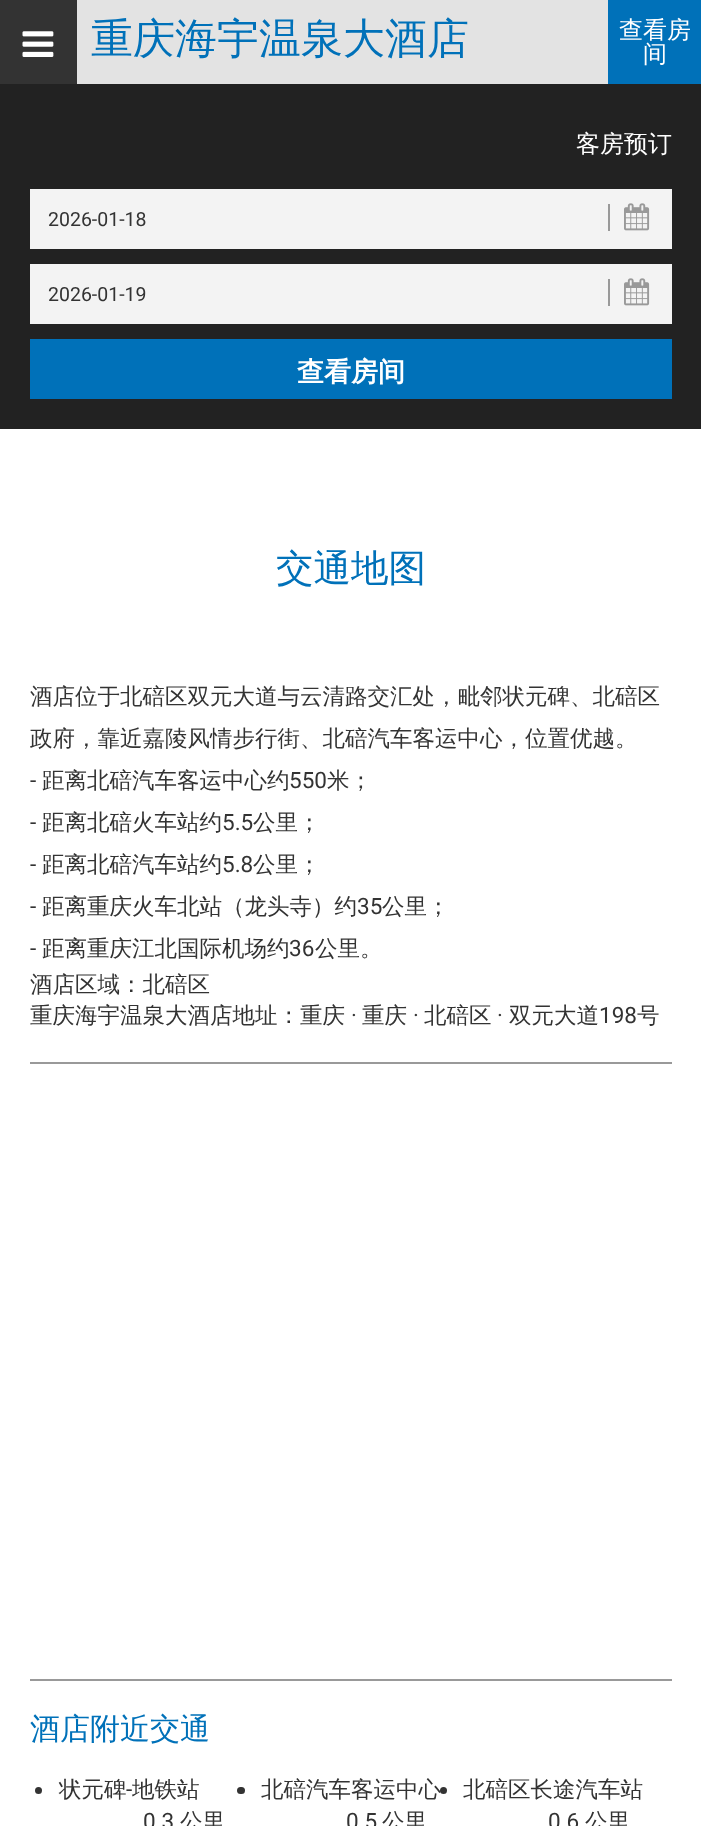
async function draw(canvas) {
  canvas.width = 701;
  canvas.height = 1826;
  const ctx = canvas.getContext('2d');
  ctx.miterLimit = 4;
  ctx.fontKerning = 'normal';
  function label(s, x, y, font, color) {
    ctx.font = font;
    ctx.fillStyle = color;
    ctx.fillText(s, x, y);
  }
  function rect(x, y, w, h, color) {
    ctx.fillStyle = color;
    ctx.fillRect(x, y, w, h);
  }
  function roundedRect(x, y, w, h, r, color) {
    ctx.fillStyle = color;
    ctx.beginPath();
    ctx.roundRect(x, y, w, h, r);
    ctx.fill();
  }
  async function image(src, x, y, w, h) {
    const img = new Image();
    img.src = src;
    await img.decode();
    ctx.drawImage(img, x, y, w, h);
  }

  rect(0, 0, 701, 1826, '#fff');
  rect(77, 0, 531, 84, '#e3e3e3');
  rect(0, 0, 77, 84, '#333');
  await image('assets/img1.png', 22, 31, 32, 26);
  label('重庆海宇温泉大酒店', 91, 53, '500 42px WenQuanYi Zen Hei', '#0071b9');
  rect(608, 0, 93, 84, '#0071b9');
  label('查看房', 619, 38, '500 24px WenQuanYi Zen Hei', '#fff');
  label('间', 643, 62, '500 24px WenQuanYi Zen Hei', '#fff');
  rect(0, 84, 701, 345, '#222');
  label('客房预订', 576, 152, '500 24px WenQuanYi Zen Hei', '#fff');
  rect(30, 189, 642, 60, '#f3f3f3');
  label('2026-01-18', 48, 226, '19.5px Roboto', '#333');
  rect(608, 204, 2, 27, '#999');
  await image('assets/img2.png', 624, 203, 26, 28);
  rect(30, 264, 642, 60, '#f3f3f3');
  label('2026-01-19', 48, 301, '19.5px Roboto', '#333');
  rect(608, 279, 2, 27, '#999');
  await image('assets/img2.png', 624, 278, 26, 28);
  rect(30, 339, 642, 60, '#0071b9');
  label('查看房间', 297, 381, 'bold 27px WenQuanYi Zen Hei', '#fff');
  label('交通地图', 276, 581, '500 37.5px WenQuanYi Zen Hei', '#0071b9');
  rect(30, 1062, 642, 2, '#999');
  label('酒店位于北碚区双元大道与云清路交汇处，毗邻状元碑、北碚区', 30, 704, '500 22.5px WenQuanYi Zen Hei', '#333');
  label('政府，靠近嘉陵风情步行街、北碚汽车客运中心，位置优越。', 30, 746, '500 22.5px WenQuanYi Zen Hei', '#333');
  label('-', 30, 788, '22.5px Roboto', '#333');
  label('距离北碚汽车客运中心约', 42, 788, '500 22.5px WenQuanYi Zen Hei', '#333');
  label('550', 289, 788, '22.5px Roboto', '#333');
  label('米；', 327, 788, '500 22.5px WenQuanYi Zen Hei', '#333');
  label('-', 30, 830, '22.5px Roboto', '#333');
  label('距离北碚火车站约', 42, 830, '500 22.5px WenQuanYi Zen Hei', '#333');
  label('5.5', 222, 830, '22.5px Roboto', '#333');
  label('公里；', 253, 830, '500 22.5px WenQuanYi Zen Hei', '#333');
  label('-', 30, 872, '22.5px Roboto', '#333');
  label('距离北碚汽车站约', 42, 872, '500 22.5px WenQuanYi Zen Hei', '#333');
  label('5.8', 222, 872, '22.5px Roboto', '#333');
  label('公里；', 253, 872, '500 22.5px WenQuanYi Zen Hei', '#333');
  label('-', 30, 914, '22.5px Roboto', '#333');
  label('距离重庆火车北站（龙头寺）约', 42, 914, '500 22.5px WenQuanYi Zen Hei', '#333');
  label('35', 357, 914, '22.5px Roboto', '#333');
  label('公里；', 382, 914, '500 22.5px WenQuanYi Zen Hei', '#333');
  label('-', 30, 956, '22.5px Roboto', '#333');
  label('距离重庆江北国际机场约', 42, 956, '500 22.5px WenQuanYi Zen Hei', '#333');
  label('36', 289, 956, '22.5px Roboto', '#333');
  label('公里。', 315, 956, '500 22.5px WenQuanYi Zen Hei', '#333');
  label('酒店区域：北碚区', 30, 992, '500 22.5px WenQuanYi Zen Hei', '#333');
  label('重庆海宇温泉大酒店地址：重庆', 30, 1023, '500 22.5px WenQuanYi Zen Hei', '#333');
  label('·', 351, 1023, '22.5px Roboto', '#333');
  label('重庆', 362, 1023, '500 22.5px WenQuanYi Zen Hei', '#333');
  label('·', 413, 1023, '22.5px Roboto', '#333');
  label('北碚区', 424, 1023, '500 22.5px WenQuanYi Zen Hei', '#333');
  label('·', 497, 1023, '22.5px Roboto', '#333');
  label('双元大道', 509, 1023, '500 22.5px WenQuanYi Zen Hei', '#333');
  label('198', 599, 1023, '22.5px Roboto', '#333');
  label('号', 637, 1023, '500 22.5px WenQuanYi Zen Hei', '#333');
  rect(30, 1679, 642, 2, '#999');
  label('酒店附近交通', 30, 1739, '500 30px WenQuanYi Zen Hei', '#0071b9');
  ctx.fillStyle = '#333';
  ctx.beginPath();
  ctx.arc(38.5, 1790.5, 3.5, 0, 2 * Math.PI);
  ctx.fill();
  label('状元碑', 59, 1797, '500 22.5px WenQuanYi Zen Hei', '#333');
  label('-', 126, 1797, '22.5px Roboto', '#333');
  label('地铁站', 132, 1797, '500 22.5px WenQuanYi Zen Hei', '#333');
  label('0.3', 143, 1829, '22.5px Roboto', '#333');
  label('公里', 180, 1829, '500 22.5px WenQuanYi Zen Hei', '#333');
  roundedRect(237, 1787, 8, 7, 3.5, '#333');
  label('北碚汽车客运中心', 261, 1797, '500 22.5px WenQuanYi Zen Hei', '#333');
  label('0.5', 346, 1829, '22.5px Roboto', '#333');
  label('公里', 382, 1829, '500 22.5px WenQuanYi Zen Hei', '#333');
  ctx.beginPath();
  ctx.arc(443.5, 1790.5, 3.5, 0, 2 * Math.PI);
  ctx.fill();
  label('北碚区长途汽车站', 463, 1797, '500 22.5px WenQuanYi Zen Hei', '#333');
  label('0.6', 548, 1829, '22.5px Roboto', '#333');
  label('公里', 585, 1829, '500 22.5px WenQuanYi Zen Hei', '#333');
}

draw(document.querySelector('canvas'));
